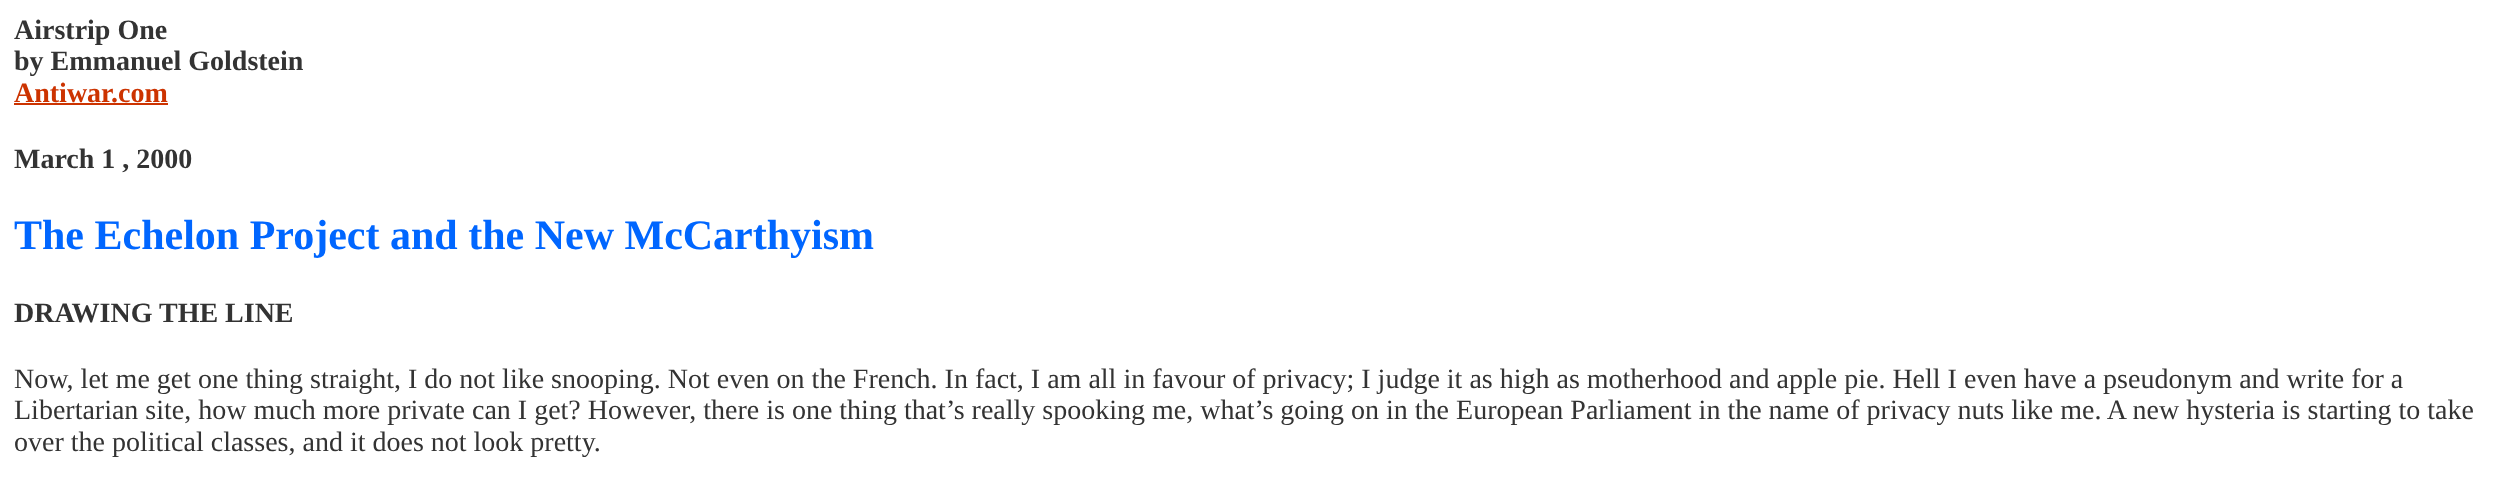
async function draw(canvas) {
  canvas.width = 2516;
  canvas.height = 500;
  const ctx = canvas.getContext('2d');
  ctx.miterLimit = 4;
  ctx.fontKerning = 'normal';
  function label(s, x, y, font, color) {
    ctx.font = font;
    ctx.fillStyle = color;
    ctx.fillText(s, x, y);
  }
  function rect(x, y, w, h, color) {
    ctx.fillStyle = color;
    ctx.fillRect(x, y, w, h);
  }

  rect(0, 0, 2516, 500, '#fff');
  label('Airstrip One', 14, 39, 'bold 28px Liberation Serif', '#333');
  label('by Emmanuel Goldstein', 14, 70, 'bold 28px Liberation Serif', '#333');
  label('Antiwar.com', 14, 102, 'bold 28px Liberation Serif', '#c30');
  rect(14, 103, 154, 2, '#c30');
  label('March 1 , 2000', 14, 168, 'bold 28px Liberation Serif', '#333');
  label('The Echelon Project and the New McCarthyism', 14, 249, 'bold 42px Liberation Serif', '#06f');
  label('DRAWING THE LINE', 14, 322, 'bold 28px Liberation Serif', '#333');
  label('Now, let me get one thing straight, I do not like snooping. Not even on the French. In fact, I am all in favour of privacy; I judge it as high as motherhood and apple pie. Hell I even have a pseudonym and write for a', 14, 388, '28px Liberation Serif', '#333');
  label('Libertarian site, how much more private can I get? However, there is one thing that’s really spooking me, what’s going on in the European Parliament in the name of privacy nuts like me. A new hysteria is starting to take', 14, 419, '28px Liberation Serif', '#333');
  label('over the political classes, and it does not look pretty.', 14, 451, '28px Liberation Serif', '#333');
}

draw(document.querySelector('canvas'));
